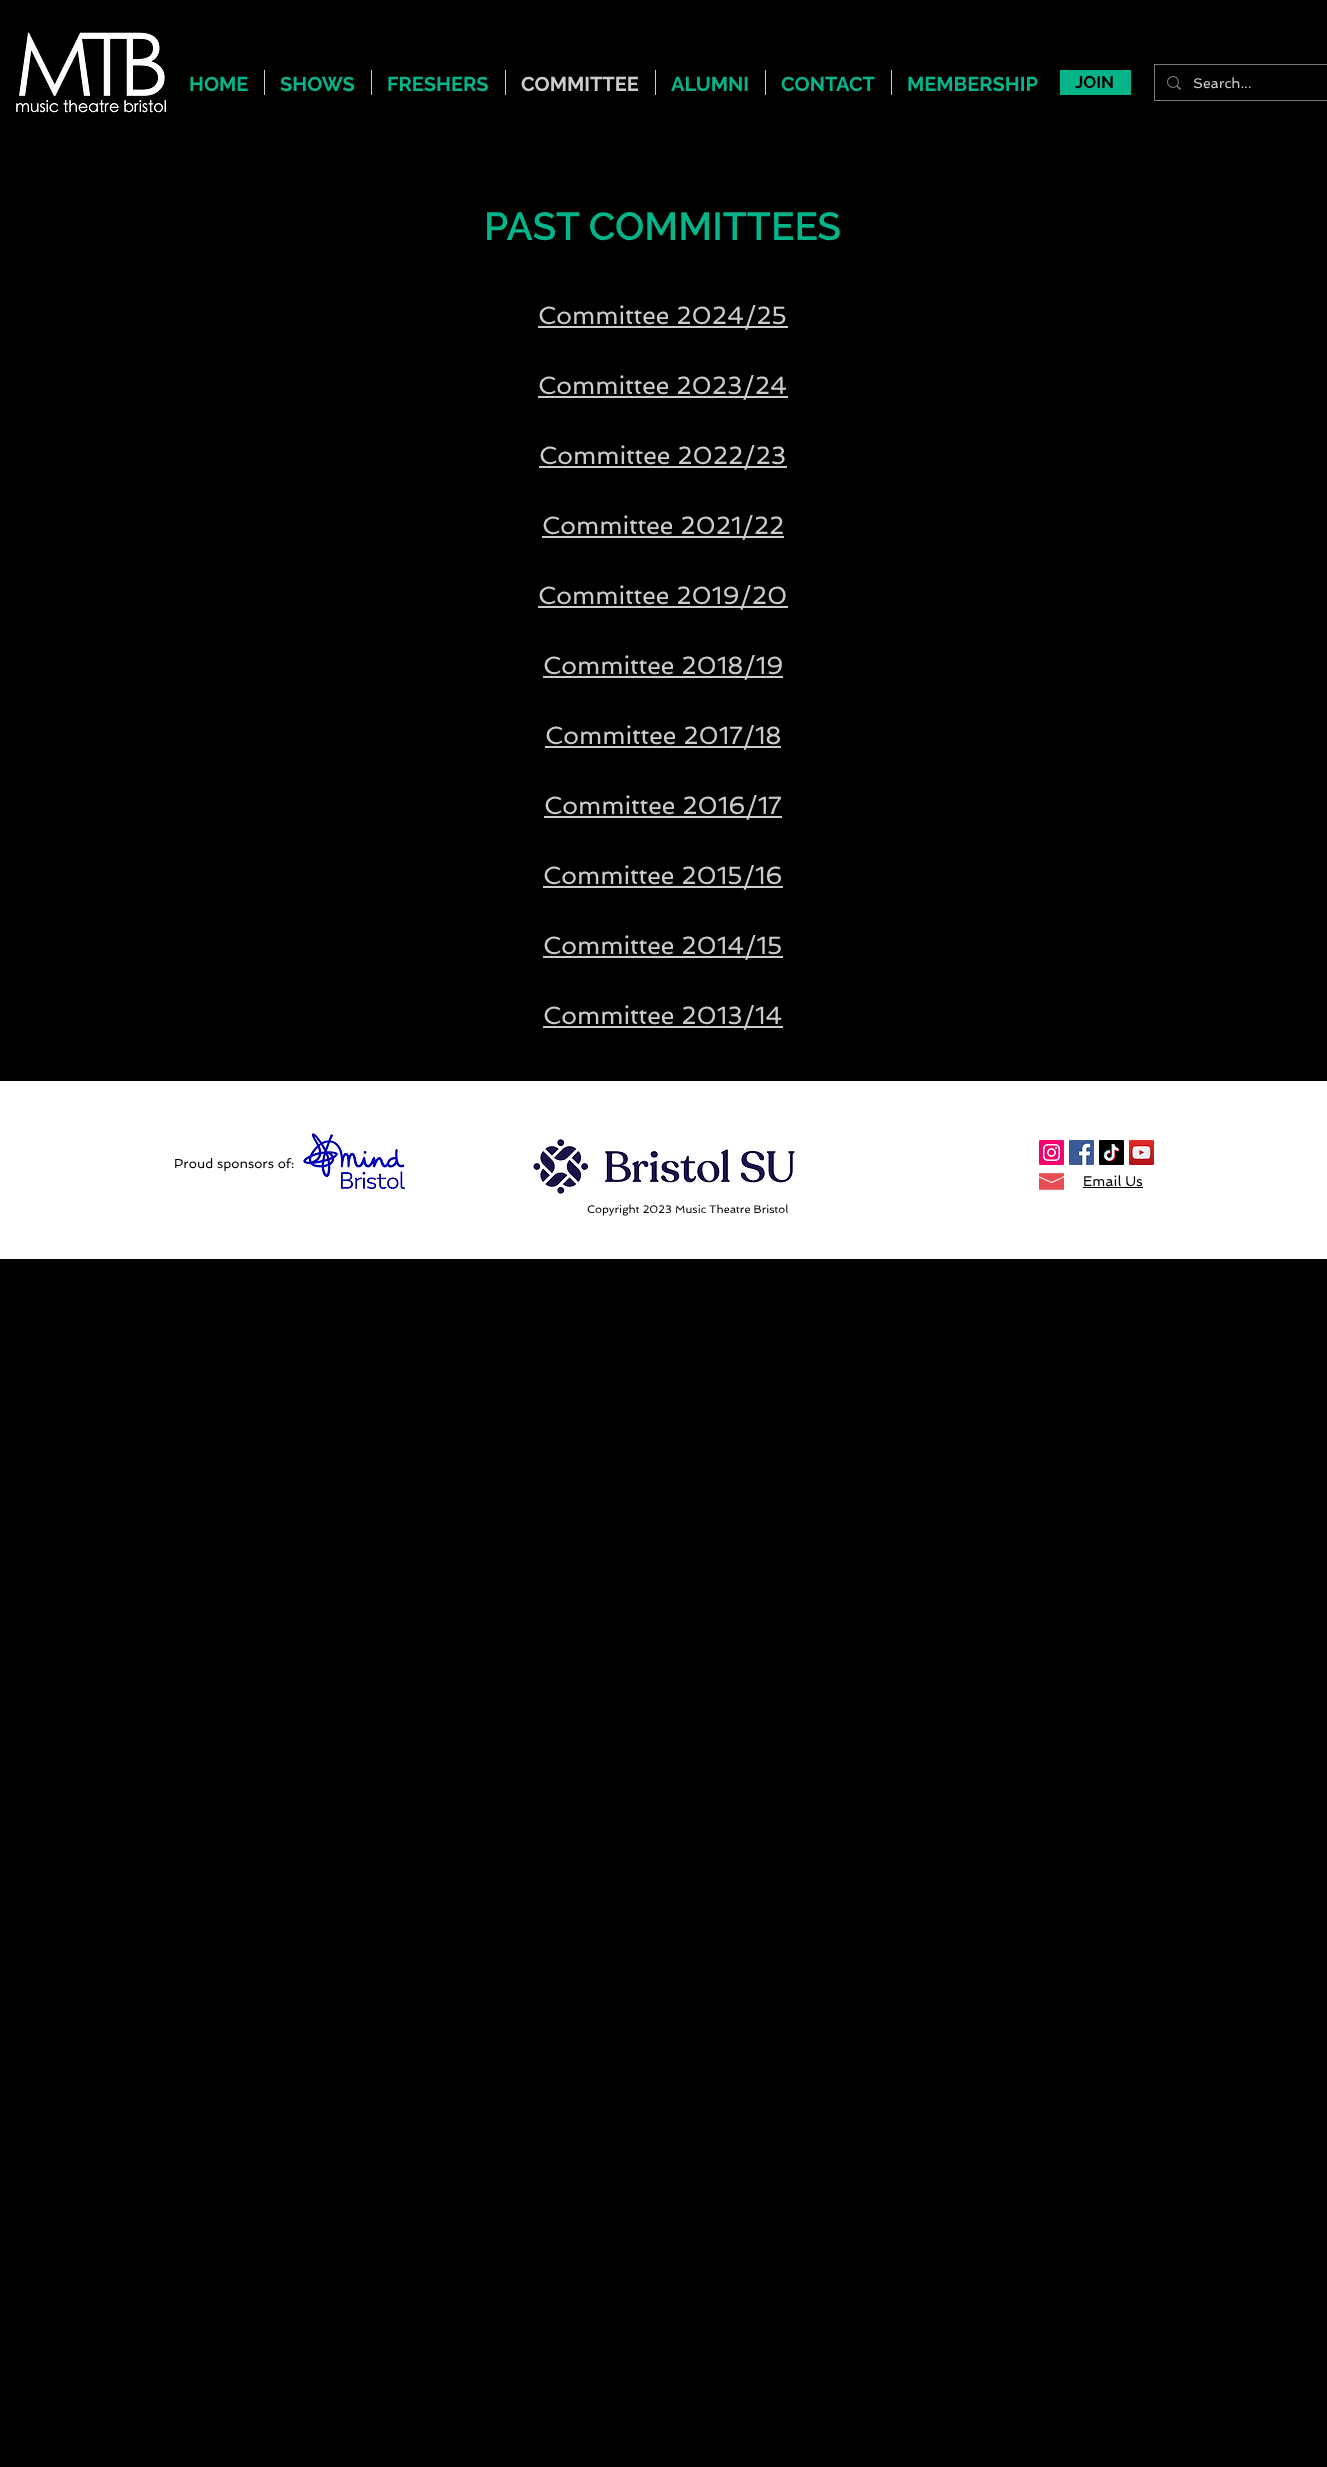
async function draw(canvas) {
  canvas.width = 1327;
  canvas.height = 2467;
  const ctx = canvas.getContext('2d');
  ctx.miterLimit = 4;
  ctx.fontKerning = 'normal';
  function label(s, x, y, font, color) {
    ctx.font = font;
    ctx.fillStyle = color;
    ctx.fillText(s, x, y);
  }
  function rect(x, y, w, h, color) {
    ctx.fillStyle = color;
    ctx.fillRect(x, y, w, h);
  }
  async function image(src, x, y, w, h) {
    const img = new Image();
    img.src = src;
    await img.decode();
    ctx.drawImage(img, x, y, w, h);
  }

  rect(0, 0, 1327, 2467, '#000');
  await image('assets/img1.png', 16, 32, 150, 81);
  label('HOME', 189, 91, 'bold 20px Raleway', '#05b589');
  rect(264, 70, 1, 25, '#ccc');
  label('SHOWS', 280, 91, 'bold 20px Raleway', '#05b589');
  rect(371, 70, 1, 25, '#ccc');
  label('FRESHERS', 387, 91, 'bold 20px Raleway', '#05b589');
  rect(505, 70, 1, 25, '#ccc');
  label('COMMITTEE', 521, 91, 'bold 20px Raleway', '#ccc');
  rect(655, 70, 1, 25, '#ccc');
  label('ALUMNI', 671, 91, 'bold 20px Raleway', '#05b589');
  rect(765, 70, 1, 25, '#ccc');
  label('CONTACT', 781, 91, 'bold 20px Raleway', '#05b589');
  rect(891, 70, 1, 25, '#ccc');
  label('MEMBERSHIP', 907, 91, 'bold 20px Raleway', '#05b589');
  rect(1060, 70, 71, 25, '#05b589');
  label('JOIN', 1075, 88, 'bold 17px Raleway', '#000');
  ctx.strokeStyle = '#7a7a7a';
  ctx.strokeRect(1154.5, 64.5, 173, 36);
  await image('assets/img2.png', 1167, 76, 14, 14);
  label('Search...', 1193, 88, '14px Spinnaker', '#ccc');
  label('PAST COMMITTEES', 484, 240, '600 39px Raleway', '#05b589');
  rect(538, 326, 250, 2, '#ccc');
  label('Committee 2024/25', 538, 324, '25px Spinnaker', '#ccc');
  rect(538, 396, 250, 2, '#ccc');
  label('Committee 2023/24', 538, 394, '25px Spinnaker', '#ccc');
  rect(539, 466, 248, 2, '#ccc');
  label('Committee 2022/23', 539, 464, '25px Spinnaker', '#ccc');
  rect(542, 536, 242, 2, '#ccc');
  label('Committee 2021/22', 542, 534, '25px Spinnaker', '#ccc');
  rect(538, 606, 250, 2, '#ccc');
  label('Committee 2019/20', 538, 604, '25px Spinnaker', '#ccc');
  rect(543, 676, 240, 2, '#ccc');
  label('Committee 2018/19', 543, 674, '25px Spinnaker', '#ccc');
  rect(545, 746, 236, 2, '#ccc');
  label('Committee 2017/18', 545, 744, '25px Spinnaker', '#ccc');
  rect(544, 816, 238, 2, '#ccc');
  label('Committee 2016/17', 544, 814, '25px Spinnaker', '#ccc');
  rect(543, 886, 240, 2, '#ccc');
  label('Committee 2015/16', 543, 884, '25px Spinnaker', '#ccc');
  rect(543, 956, 240, 2, '#ccc');
  label('Committee 2014/15', 543, 954, '25px Spinnaker', '#ccc');
  rect(543, 1026, 240, 2, '#ccc');
  label('Committee 2013/14', 543, 1024, '25px Spinnaker', '#ccc');
  rect(0, 1081, 1327, 178, '#fff');
  label('Proud sponsors of:', 174, 1168, '13px Spinnaker', '#000');
  await image('assets/img3.png', 303, 1133, 102, 56);
  await image('assets/img4.png', 533, 1139, 262, 55);
  await image('assets/img5.png', 1039, 1140, 25, 25);
  await image('assets/img6.png', 1069, 1140, 25, 25);
  await image('assets/img7.png', 1099, 1140, 25, 25);
  await image('assets/img8.png', 1129, 1140, 25, 25);
  await image('assets/img9.png', 1039, 1173, 25, 17);
  label('Email Us', 1083, 1186, '14px Spinnaker', '#000');
  rect(1083, 1187, 60, 1, '#000');
  label('Copyright 2023 Music Theatre Bristol', 587, 1213, '11px Spinnaker', '#000');
}

draw(document.querySelector('canvas'));
